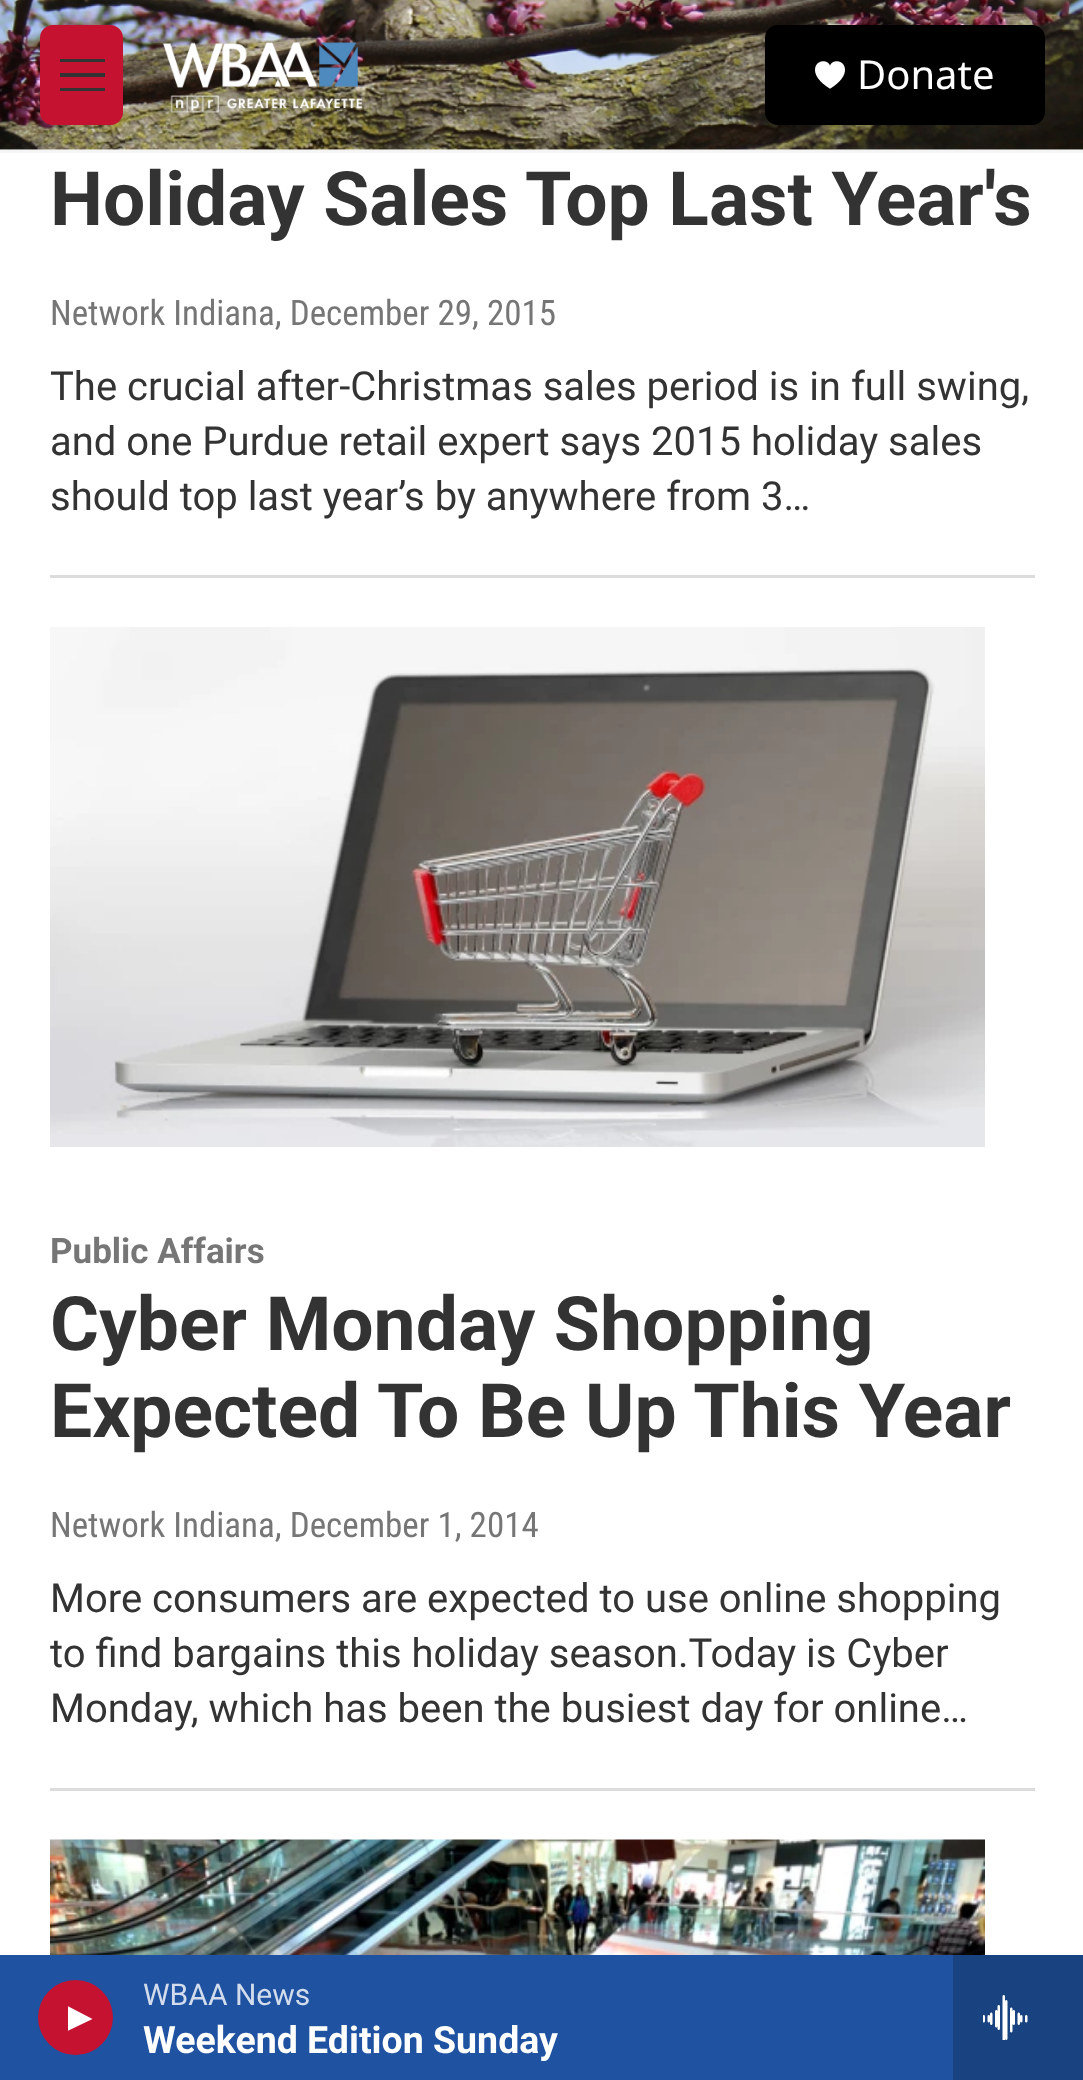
async function draw(canvas) {
  canvas.width = 1083;
  canvas.height = 2080;
  const ctx = canvas.getContext('2d');
  ctx.miterLimit = 4;
  ctx.fontKerning = 'normal';
  function label(s, x, y, font, color) {
    ctx.font = font;
    ctx.fillStyle = color;
    ctx.fillText(s, x, y);
  }
  function rect(x, y, w, h, color) {
    ctx.fillStyle = color;
    ctx.fillRect(x, y, w, h);
  }
  function roundedRect(x, y, w, h, r, color) {
    ctx.fillStyle = color;
    ctx.beginPath();
    ctx.roundRect(x, y, w, h, r);
    ctx.fill();
  }
  async function image(src, x, y, w, h) {
    const img = new Image();
    img.src = src;
    await img.decode();
    ctx.drawImage(img, x, y, w, h);
  }
  let path;

  rect(0, 0, 1083, 2080, '#fff');
  rect(0, 150, 1083, 3, '#f5f5f5');
  await image('assets/img1.png', 0, 0, 1083, 150);
  roundedRect(40, 25, 83, 100, 13, '#c41230');
  ctx.fillStyle = '#333';
  path = new Path2D('M60 77V73H105V77ZM60 62V59H105V62ZM60 91V88H105V91Z');
  ctx.fill(path, 'evenodd');
  await image('assets/img2.png', 163, 42, 199, 71);
  roundedRect(765, 25, 280, 100, 13, '#000');
  await image('assets/img3.png', 815, 61, 30, 28);
  label('Donate', 857, 89, '40px Noto Sans', '#fff');
  rect(0, 1955, 953, 125, '#1f52a1');
  ctx.fillStyle = '#c41230';
  ctx.beginPath();
  ctx.arc(75.5, 2017.5, 37.5, 0, 2 * Math.PI);
  ctx.fill();
  ctx.save();
  ctx.beginPath();
  ctx.rect(68, 2005, 25, 28);
  ctx.clip();
  ctx.fillStyle = '#fff';
  path = new Path2D('M67.5 2006L92.5 2019L67.5 2031Z');
  ctx.fill(path);
  ctx.restore();
  label('WBAA News', 143, 2005, '30px Roboto', '#d2dcec');
  label('Weekend Edition Sunday', 143, 2053, 'bold 37.5px "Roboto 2"', '#fff');
  rect(953, 1955, 130, 125, '#194281');
  await image('assets/img4.png', 983, 1995, 45, 45);
  rect(50, 575, 985, 3, '#dcdcdc');
  label('Holiday Sales Top Last Year\'s', 50, 225, 'bold 75px Roboto', '#333');
  label('Network Indiana, December 29, 2015', 50, 325, '35px Roboto Condensed', '#767676');
  label('The crucial after-Christmas sales period is in full swing,', 50, 400, '40px Roboto', '#333');
  label('and one Purdue retail expert says 2015 holiday sales', 50, 455, '40px Roboto', '#333');
  label('should top last year’s by anywhere from 3…', 50, 510, '40px Roboto', '#333');
  rect(50, 1788, 985, 3, '#dcdcdc');
  await image('assets/img5.png', 50, 627, 935, 520);
  label('Public Affairs', 50, 1263, 'bold 35px Roboto', '#767676');
  label('Cyber Monday Shopping', 50, 1350, 'bold 75px Roboto', '#333');
  label('Expected To Be Up This Year', 50, 1437, 'bold 75px Roboto', '#333');
  label('Network Indiana, December 1, 2014', 50, 1537, '35px Roboto Condensed', '#767676');
  label('More consumers are expected to use online shopping', 50, 1612, '40px Roboto', '#333');
  label('to find bargains this holiday season.Today is Cyber', 50, 1667, '40px Roboto', '#333');
  label('Monday, which has been the busiest day for online…', 50, 1722, '40px Roboto', '#333');
  await image('assets/img6.png', 50, 1839, 935, 116);
}

draw(document.querySelector('canvas'));
